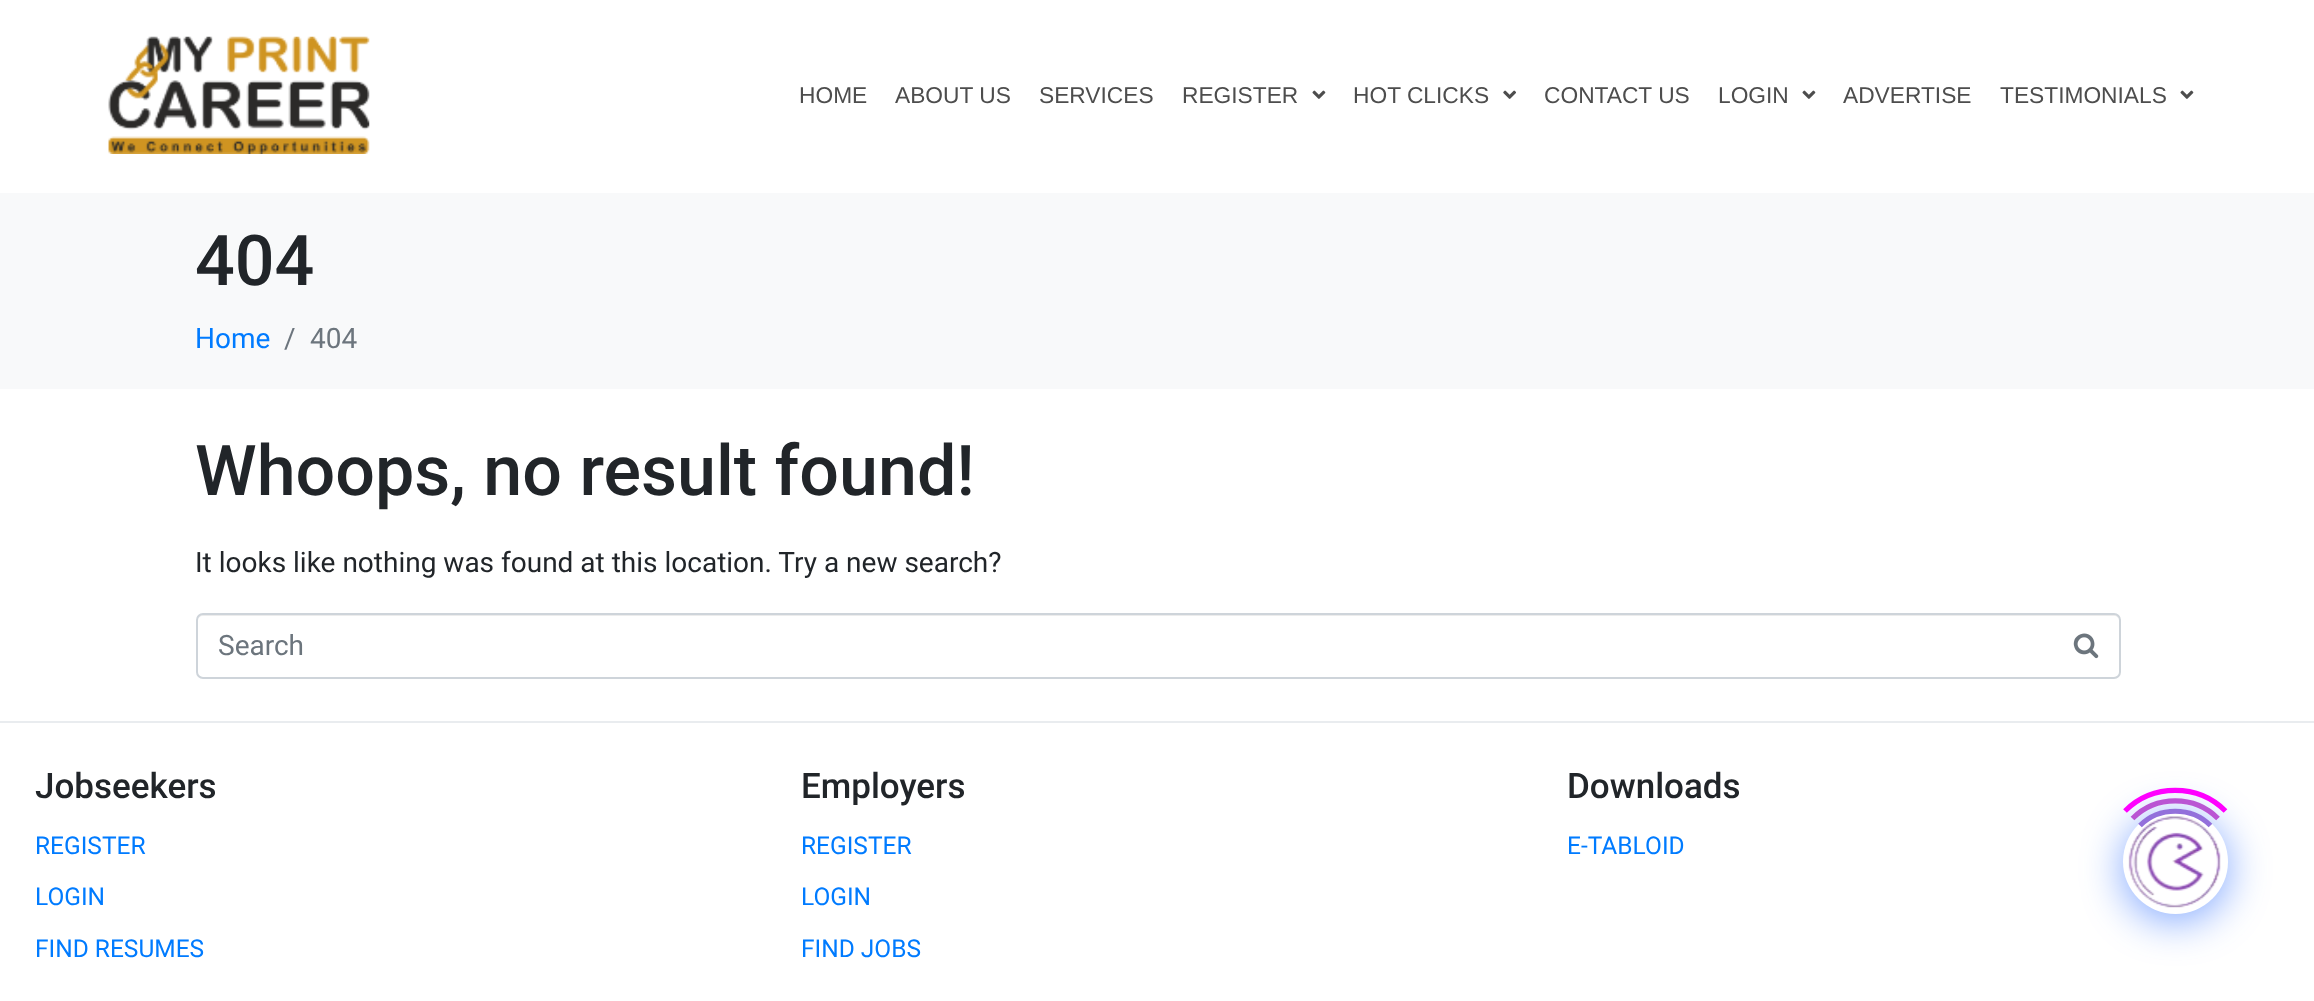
async function draw(canvas) {
  canvas.width = 2314;
  canvas.height = 1001;
  const ctx = canvas.getContext('2d');
  ctx.miterLimit = 4;
  ctx.fontKerning = 'normal';
  function label(s, x, y, font, color) {
    ctx.font = font;
    ctx.fillStyle = color;
    ctx.fillText(s, x, y);
  }
  function rect(x, y, w, h, color) {
    ctx.fillStyle = color;
    ctx.fillRect(x, y, w, h);
  }
  async function image(src, x, y, w, h) {
    const img = new Image();
    img.src = src;
    await img.decode();
    ctx.drawImage(img, x, y, w, h);
  }
  let path;

  rect(0, 0, 2314, 1001, '#fff');
  await image('assets/img1.png', 108, 36, 262, 118);
  label('HOME', 799, 103, '22.75px Liberation Sans', '#4d4d4d');
  label('ABOUT US', 895, 103, '22.75px Liberation Sans', '#4d4d4d');
  label('SERVICES', 1039, 103, '22.75px Liberation Sans', '#4d4d4d');
  label('REGISTER', 1182, 103, '22.75px Liberation Sans', '#4d4d4d');
  await image('assets/img2.png', 1312, 90, 14, 9);
  label('HOT CLICKS', 1353, 103, '22.75px Liberation Sans', '#4d4d4d');
  await image('assets/img3.png', 1503, 90, 13, 9);
  label('CONTACT US', 1544, 103, '22.75px Liberation Sans', '#4d4d4d');
  label('LOGIN', 1718, 103, '22.75px Liberation Sans', '#4d4d4d');
  await image('assets/img2.png', 1802, 90, 14, 9);
  label('ADVERTISE', 1843, 103, '22.75px Liberation Sans', '#4d4d4d');
  label('TESTIMONIALS', 2000, 103, '22.75px Liberation Sans', '#4d4d4d');
  await image('assets/img2.png', 2180, 90, 14, 9);
  rect(0, 193, 2314, 196, '#f8f9fa');
  label('404', 195, 285, '500 70px Roboto', '#212529');
  label('Home', 195, 348, '28px Roboto', '#007bff');
  label('/', 284, 348, '28px Roboto', '#6c757d');
  label('404', 310, 348, '28px Roboto', '#6c757d');
  label('Whoops, no result found!', 195, 495, '500 70px Roboto', '#212529');
  label('It looks like nothing was found at this location. Try a new search?', 195, 572, '28px Roboto', '#212529');
  ctx.fillStyle = '#ececec';
  path = new Path2D('M203 616H2114C2117 616 2119 618 2119 621C2119 618 2118 614 2114 614H203C199 614 198 618 198 621C198 618 200 616 203 616Z');
  ctx.fill(path);
  ctx.beginPath();
  ctx.roundRect(197, 614, 1923, 64, 6);
  ctx.strokeStyle = '#ced4da';
  ctx.lineWidth = 2;
  ctx.stroke();
  label('Search', 218, 655, '28px Roboto', '#6c757d');
  await image('assets/img4.png', 2073, 633, 26, 26);
  rect(0, 721, 2314, 2, '#e9ecef');
  label('Jobseekers', 35, 798, '500 35px Roboto', '#212529');
  label('REGISTER', 35, 854, '24.5px Roboto', '#007bff');
  label('LOGIN', 35, 905, '24.5px Roboto', '#007bff');
  label('FIND RESUMES', 35, 957, '24.5px Roboto', '#007bff');
  label('Employers', 801, 798, '500 35px Roboto', '#212529');
  label('REGISTER', 801, 854, '24.5px Roboto', '#007bff');
  label('LOGIN', 801, 905, '24.5px Roboto', '#007bff');
  label('FIND JOBS', 801, 957, '24.5px Roboto', '#007bff');
  label('Downloads', 1567, 798, '500 35px Roboto', '#212529');
  label('E-TABLOID', 1567, 854, '24.5px Roboto', '#007bff');
  ctx.fillStyle = '#004dff80';
  ctx.filter = 'blur(21px)';
  ctx.beginPath();
  ctx.roundRect(2123, 816, 105, 105, 52.5);
  ctx.fill();
  ctx.filter = 'none';
  ctx.fillStyle = '#fff';
  ctx.beginPath();
  ctx.arc(2175.5, 861.5, 52.5, 0, 2 * Math.PI);
  ctx.fill();
  await image('assets/img5.png', 2128, 816, 93, 92);
  path = new Path2D('M2140 825.5C2159 806.5 2191.5 806.5 2210.5 825.5');
  ctx.strokeStyle = '#9370db';
  ctx.lineWidth = 5.2;
  ctx.stroke(path);
  path = new Path2D('M2132.5 818.5C2156 795 2194.5 795 2218 818.5');
  ctx.strokeStyle = '#ba55d3';
  ctx.stroke(path);
  path = new Path2D('M2125 811C2152.5 783.5 2198 783.5 2225.5 811');
  ctx.strokeStyle = '#f0f';
  ctx.stroke(path);
}

draw(document.querySelector('canvas'));
